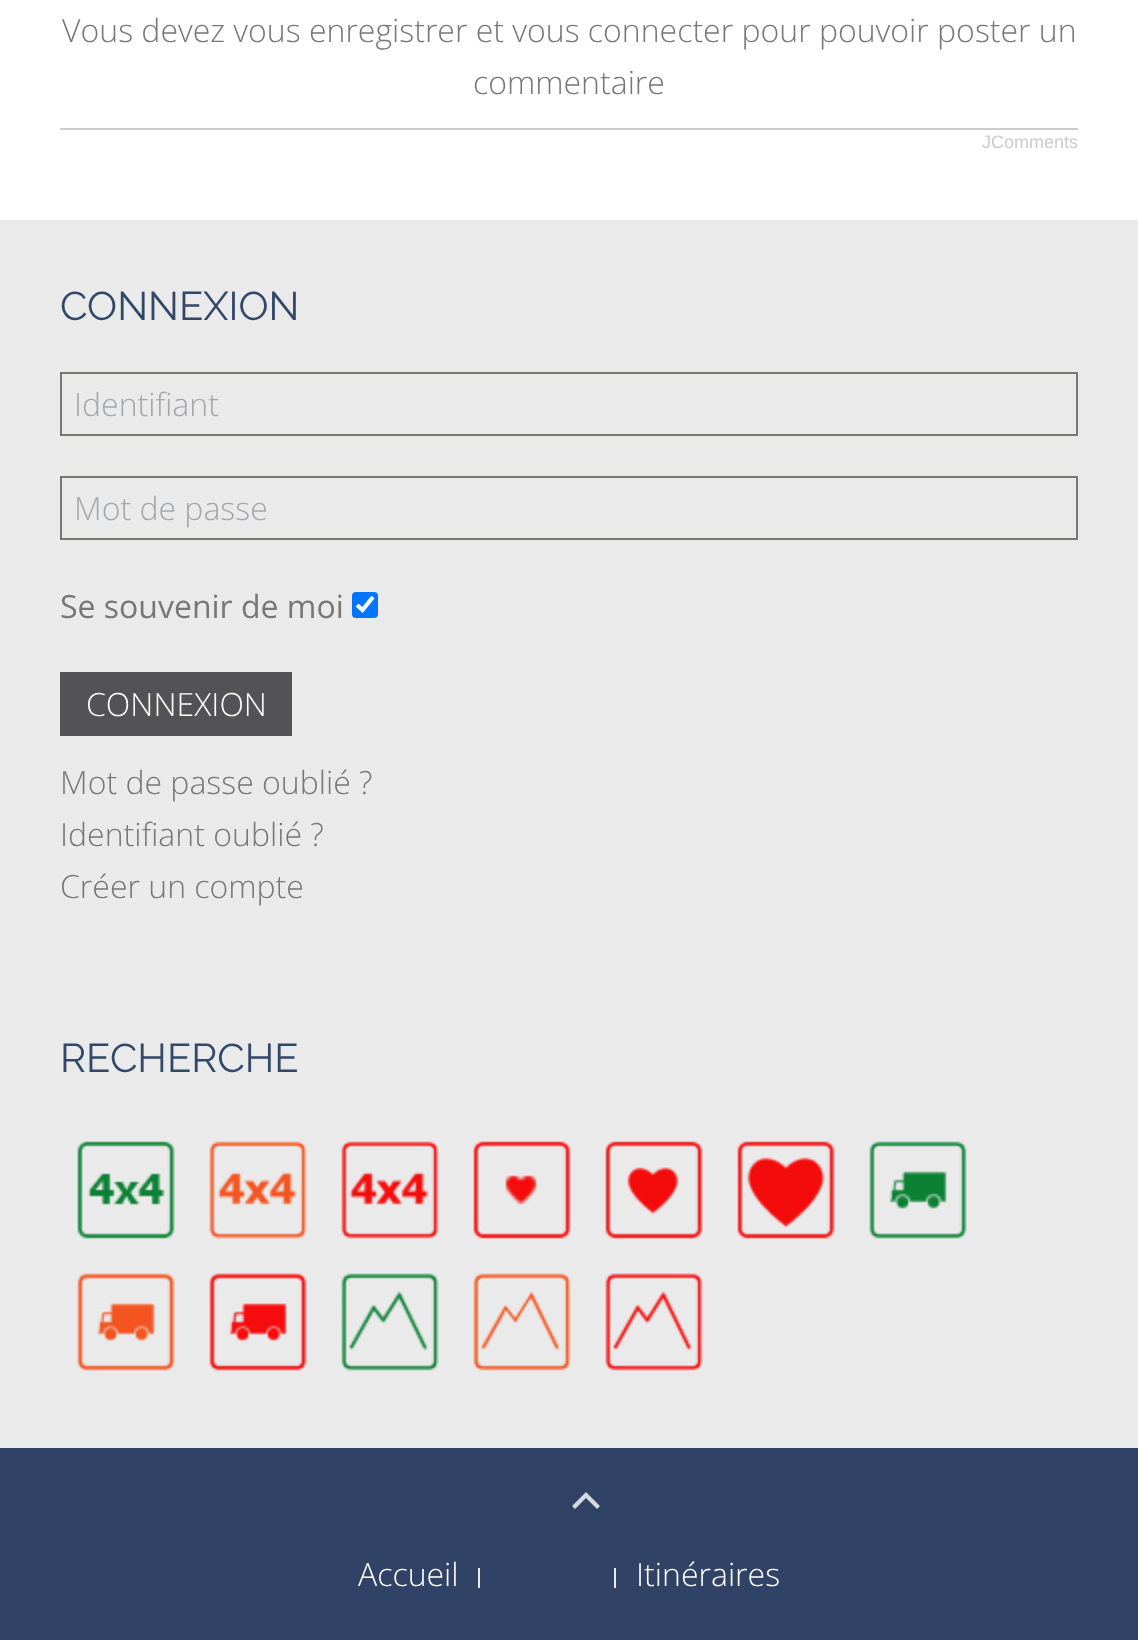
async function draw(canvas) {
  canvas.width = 1138;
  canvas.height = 1640;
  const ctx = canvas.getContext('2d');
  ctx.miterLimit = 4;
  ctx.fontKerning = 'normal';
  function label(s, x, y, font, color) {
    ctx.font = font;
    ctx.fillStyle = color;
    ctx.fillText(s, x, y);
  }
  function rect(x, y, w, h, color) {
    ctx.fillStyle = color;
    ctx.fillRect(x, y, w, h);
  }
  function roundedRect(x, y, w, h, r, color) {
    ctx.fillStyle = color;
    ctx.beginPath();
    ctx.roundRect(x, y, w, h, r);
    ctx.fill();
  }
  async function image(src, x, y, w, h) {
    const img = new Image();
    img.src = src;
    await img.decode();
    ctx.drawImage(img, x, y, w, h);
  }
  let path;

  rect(0, 0, 1138, 1640, '#fff');
  label('Vous devez vous enregistrer et vous connecter pour pouvoir poster un', 62, 42, '300 32px Open Sans', '#777');
  label('commentaire', 473, 94, '300 32px Open Sans', '#777');
  rect(60, 128, 1018, 2, '#ccc');
  label('JComments', 982, 148, '18px Liberation Sans', '#ccc');
  rect(0, 220, 1138, 1228, '#eaeaeb');
  label('CONNEXION', 60, 320, '100 40px Raleway', '#324869');
  ctx.strokeStyle = '#787773';
  ctx.lineWidth = 2;
  ctx.strokeRect(61, 373, 1016, 62);
  label('Identifiant', 74, 416, '300 32px Open Sans', '#a4a6a8');
  ctx.strokeRect(61, 477, 1016, 62);
  label('Mot de passe', 74, 520, '300 32px Open Sans', '#a4a6a8');
  label('Se souvenir de moi', 60, 618, '32px Open Sans', '#777');
  roundedRect(352, 592, 26, 26, 4, '#0075ff');
  path = new Path2D('M357 605L362.5 610L373 597');
  ctx.strokeStyle = '#fff';
  ctx.lineWidth = 4.2;
  ctx.stroke(path);
  rect(60, 672, 232, 64, '#535254');
  label('CONNEXION', 86, 716, '300 32px Open Sans', '#fff');
  label('Mot de passe oublié ?', 60, 794, '300 32px Open Sans', '#777');
  label('Identifiant oublié ?', 60, 846, '300 32px Open Sans', '#777');
  label('Créer un compte', 60, 898, '300 32px Open Sans', '#777');
  label('RECHERCHE', 60, 1072, '100 40px Raleway', '#324869');
  await image('assets/img1.png', 77, 1141, 98, 98);
  await image('assets/img2.png', 209, 1141, 98, 98);
  await image('assets/img3.png', 341, 1141, 98, 98);
  await image('assets/img4.png', 473, 1141, 98, 98);
  await image('assets/img5.png', 605, 1141, 98, 98);
  await image('assets/img6.png', 737, 1141, 98, 98);
  await image('assets/img7.png', 869, 1141, 98, 98);
  await image('assets/img8.png', 77, 1273, 98, 98);
  await image('assets/img9.png', 209, 1273, 98, 98);
  await image('assets/img10.png', 341, 1273, 98, 98);
  await image('assets/img11.png', 473, 1273, 98, 98);
  await image('assets/img12.png', 605, 1273, 98, 98);
  rect(0, 1448, 1138, 192, '#304266');
  ctx.fillStyle = '#d6d9e0';
  path = new Path2D('M600 1506L597 1509L586 1498L575 1509L572 1506L586 1492Z');
  ctx.fill(path);
  label('Accueil', 358, 1586, '300 32px Open Sans', '#fff');
  rect(478, 1568, 2, 20, '#e9eaeb');
  rect(614, 1568, 2, 20, '#e9eaeb');
  label('Itinéraires', 636, 1586, '300 32px Open Sans', '#fff');
}

draw(document.querySelector('canvas'));
